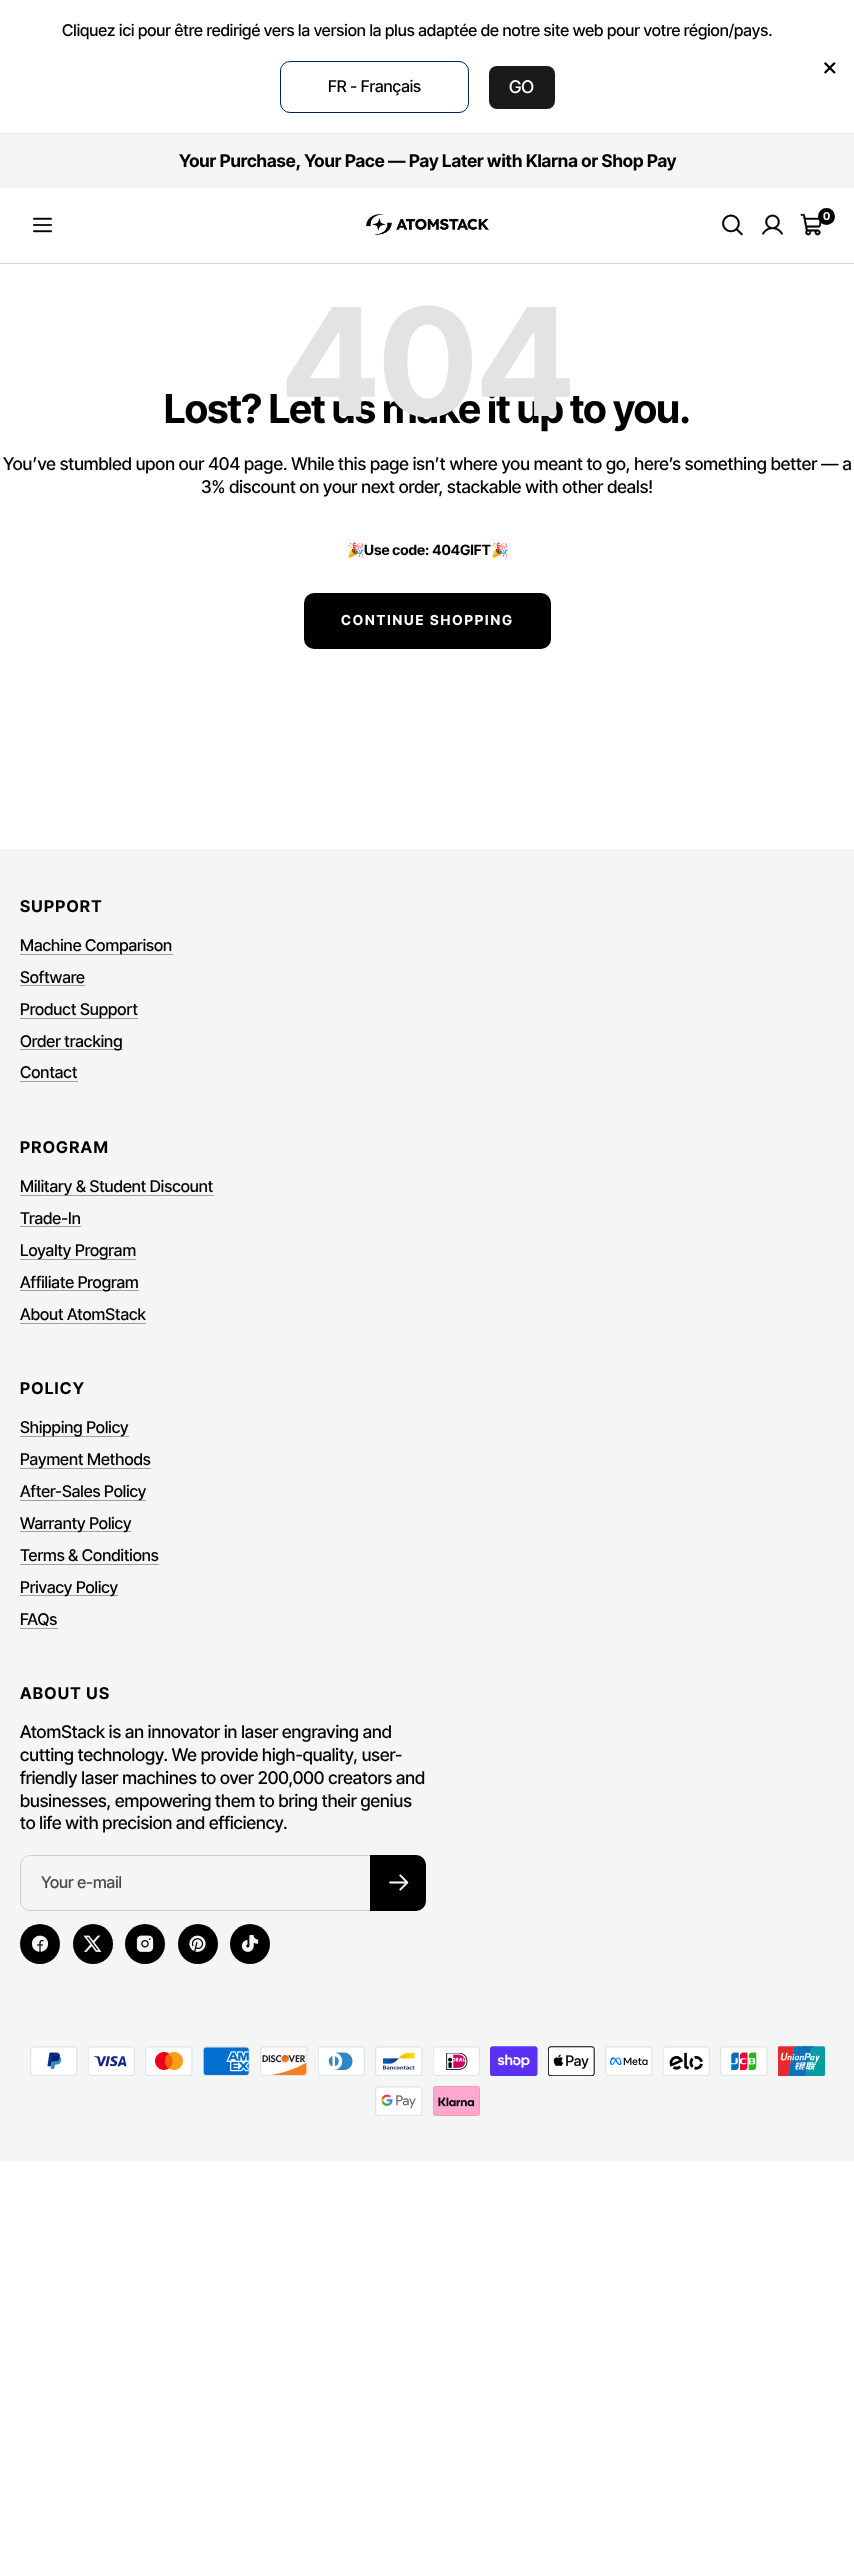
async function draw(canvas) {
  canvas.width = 854;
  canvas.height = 2565;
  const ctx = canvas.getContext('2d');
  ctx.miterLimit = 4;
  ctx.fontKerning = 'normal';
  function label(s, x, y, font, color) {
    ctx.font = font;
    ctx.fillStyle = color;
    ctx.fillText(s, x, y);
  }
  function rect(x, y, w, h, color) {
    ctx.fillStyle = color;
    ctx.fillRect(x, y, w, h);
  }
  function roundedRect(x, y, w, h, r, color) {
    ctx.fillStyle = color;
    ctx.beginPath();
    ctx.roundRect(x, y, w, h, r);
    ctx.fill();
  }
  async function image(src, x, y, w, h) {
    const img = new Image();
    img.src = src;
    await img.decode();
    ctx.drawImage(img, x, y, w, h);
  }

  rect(0, 0, 854, 2565, '#fff');
  rect(0, 133, 854, 1, '#e6e6e6');
  label('Cliquez ici pour être redirigé vers la version la plus adaptée de notre site web pour votre région/pays.', 62, 36, '500 16.25px Inter Tight', '#000');
  ctx.beginPath();
  ctx.roundRect(280.5, 61.5, 188, 51, 9.5);
  ctx.strokeStyle = '#00205c';
  ctx.stroke();
  label('FR - Français', 328, 92, '500 16.25px Inter Tight', '#000');
  roundedRect(489, 66, 66, 43, 8, '#1a1a1a');
  label('GO', 509, 93, '500 17.5px Inter Tight', '#fff');
  label('×', 822, 75, '500 25px Inter Tight', '#000');
  rect(0, 134, 854, 54, '#f5f5f5');
  label('Your Purchase, Your Pace — Pay Later with Klarna or Shop Pay', 179, 167, 'bold 17.5px Inter Tight', '#000');
  rect(0, 263, 854, 1, '#d9d9d9');
  await image('assets/img1.png', 33, 217, 19, 16);
  await image('assets/img2.png', 366, 214, 123, 21);
  await image('assets/img3.png', 722, 214, 21, 22);
  await image('assets/img4.png', 762, 214, 21, 21);
  await image('assets/img5.png', 800, 213, 22, 23);
  ctx.fillStyle = '#000';
  ctx.beginPath();
  ctx.arc(826.5, 216.5, 8.5, 0, 2 * Math.PI);
  ctx.fill();
  label('0', 823, 220, 'bold 11px Inter Tight', '#fff');
  ctx.letterSpacing = '-0.75px';
  label('Lost? Let us make it up to you.', 164, 423, 'bold 40px Inter Tight', '#000');
  ctx.letterSpacing = '0px';
  label('404', 282, 416, 'bold 150px Inter Tight', '#e3e3e3');
  label('You’ve stumbled upon our 404 page. While this page isn’t where you meant to go, here’s something better — a', 3, 470, '500 17.5px Inter Tight', '#000');
  label('3% discount on your next order, stackable with other deals!', 201, 493, '500 17.5px Inter Tight', '#000');
  label('🎉', 347, 555, 'bold 14.25px Noto Color Emoji', '#000');
  label('Use code: 404GIFT', 364, 555, 'bold 14.25px Inter Tight', '#000');
  label('🎉', 491, 555, 'bold 14.25px Noto Color Emoji', '#000');
  roundedRect(304, 593, 247, 56, 10, '#000');
  ctx.letterSpacing = '1.9px';
  label('CONTINUE SHOPPING', 341, 625, 'bold 13.75px Inter Tight', '#fff');
  rect(0, 849, 854, 1312, '#f4f5f5');
  ctx.letterSpacing = '1.25px';
  label('SUPPORT', 20, 912, 'bold 16.25px Inter Tight', '#000');
  rect(20, 954, 153, 1, '#9f9f9f');
  ctx.letterSpacing = '0px';
  label('Machine Comparison', 20, 951, '500 16.25px Inter Tight', '#000');
  label('Software', 20, 983, '500 16.25px Inter Tight', '#000');
  rect(20, 985, 65, 1, '#9f9f9f');
  rect(20, 1018, 118, 1, '#9f9f9f');
  label('Product Support', 20, 1015, '500 16.25px Inter Tight', '#000');
  rect(20, 1049, 103, 1, '#9f9f9f');
  label('Order tracking', 20, 1047, '500 16.25px Inter Tight', '#000');
  label('Contact', 20, 1078, '500 16.25px Inter Tight', '#000');
  rect(20, 1081, 58, 1, '#9f9f9f');
  ctx.letterSpacing = '1.25px';
  label('PROGRAM', 20, 1153, 'bold 16.25px Inter Tight', '#000');
  rect(20, 1195, 194, 1, '#9f9f9f');
  ctx.letterSpacing = '0px';
  label('Military & Student Discount', 20, 1192, '500 16.25px Inter Tight', '#000');
  label('Trade-In', 20, 1224, '500 16.25px Inter Tight', '#000');
  rect(20, 1226, 61, 1, '#9f9f9f');
  rect(20, 1259, 116, 1, '#9f9f9f');
  label('Loyalty Program', 20, 1256, '500 16.25px Inter Tight', '#000');
  rect(20, 1290, 119, 1, '#9f9f9f');
  label('Affiliate Program', 20, 1288, '500 16.25px Inter Tight', '#000');
  label('About AtomStack', 20, 1320, '500 16.25px Inter Tight', '#000');
  rect(20, 1323, 126, 1, '#9f9f9f');
  ctx.letterSpacing = '1.25px';
  label('POLICY', 20, 1394, 'bold 16.25px Inter Tight', '#000');
  rect(20, 1436, 109, 1, '#9f9f9f');
  ctx.letterSpacing = '0px';
  label('Shipping Policy', 20, 1433, '500 16.25px Inter Tight', '#000');
  rect(20, 1468, 131, 1, '#9f9f9f');
  label('Payment Methods', 20, 1465, '500 16.25px Inter Tight', '#000');
  rect(20, 1500, 126, 1, '#9f9f9f');
  label('After-Sales Policy', 20, 1497, '500 16.25px Inter Tight', '#000');
  rect(20, 1531, 111, 1, '#9f9f9f');
  label('Warranty Policy', 20, 1529, '500 16.25px Inter Tight', '#000');
  label('Terms & Conditions', 20, 1561, '500 16.25px Inter Tight', '#000');
  rect(20, 1564, 139, 1, '#9f9f9f');
  rect(20, 1595, 98, 1, '#9f9f9f');
  label('Privacy Policy', 20, 1593, '500 16.25px Inter Tight', '#000');
  label('FAQs', 20, 1625, '500 16.25px Inter Tight', '#000');
  rect(20, 1628, 38, 1, '#9f9f9f');
  ctx.letterSpacing = '1.25px';
  label('ABOUT US', 20, 1699, 'bold 16.25px Inter Tight', '#000');
  ctx.letterSpacing = '0px';
  label('AtomStack is an innovator in laser engraving and', 20, 1738, '500 17.5px Inter Tight', '#000');
  label('cutting technology. We provide high-quality, user-', 20, 1761, '500 17.5px Inter Tight', '#000');
  label('friendly laser machines to over 200,000 creators and', 20, 1784, '500 17.5px Inter Tight', '#000');
  label('businesses, empowering them to bring their genius', 20, 1807, '500 17.5px Inter Tight', '#000');
  label('to life with precision and efficiency.', 20, 1829, '500 17.5px Inter Tight', '#000');
  ctx.beginPath();
  ctx.roundRect(20.5, 1855.5, 405, 55, 9.5);
  ctx.strokeStyle = '#cfd0d0';
  ctx.stroke();
  label('Your e-mail', 41, 1888, '500 16.25px Inter Tight', '#494a4a');
  ctx.fillStyle = '#000';
  ctx.beginPath();
  ctx.roundRect(370, 1855, 56, 56, [0, 10, 10, 0]);
  ctx.fill();
  await image('assets/img6.png', 389, 1874, 20, 17);
  ctx.beginPath();
  ctx.arc(40, 1944, 20, 0, 2 * Math.PI);
  ctx.fill();
  await image('assets/img7.png', 31, 1935, 18, 17);
  ctx.beginPath();
  ctx.arc(93, 1944, 20, 0, 2 * Math.PI);
  ctx.fill();
  await image('assets/img8.png', 83, 1935, 19, 17);
  ctx.beginPath();
  ctx.arc(145, 1944, 20, 0, 2 * Math.PI);
  ctx.fill();
  await image('assets/img9.png', 136, 1935, 18, 17);
  ctx.beginPath();
  ctx.arc(198, 1944, 20, 0, 2 * Math.PI);
  ctx.fill();
  await image('assets/img10.png', 189, 1935, 17, 17);
  ctx.beginPath();
  ctx.arc(250, 1944, 20, 0, 2 * Math.PI);
  ctx.fill();
  await image('assets/img11.png', 241, 1935, 18, 17);
  await image('assets/img12.png', 30, 2046, 48, 30);
  await image('assets/img13.png', 88, 2046, 47, 30);
  await image('assets/img14.png', 145, 2046, 48, 30);
  await image('assets/img15.png', 203, 2046, 47, 30);
  await image('assets/img16.png', 260, 2046, 48, 30);
  await image('assets/img17.png', 318, 2046, 47, 30);
  await image('assets/img18.png', 375, 2046, 48, 30);
  await image('assets/img19.png', 433, 2046, 47, 30);
  await image('assets/img20.png', 490, 2046, 48, 30);
  await image('assets/img21.png', 548, 2046, 47, 30);
  await image('assets/img22.png', 605, 2046, 48, 30);
  await image('assets/img23.png', 663, 2046, 47, 30);
  await image('assets/img24.png', 720, 2046, 48, 30);
  await image('assets/img25.png', 778, 2046, 47, 30);
  await image('assets/img26.png', 375, 2086, 48, 30);
  await image('assets/img27.png', 433, 2086, 47, 30);
}

draw(document.querySelector('canvas'));
